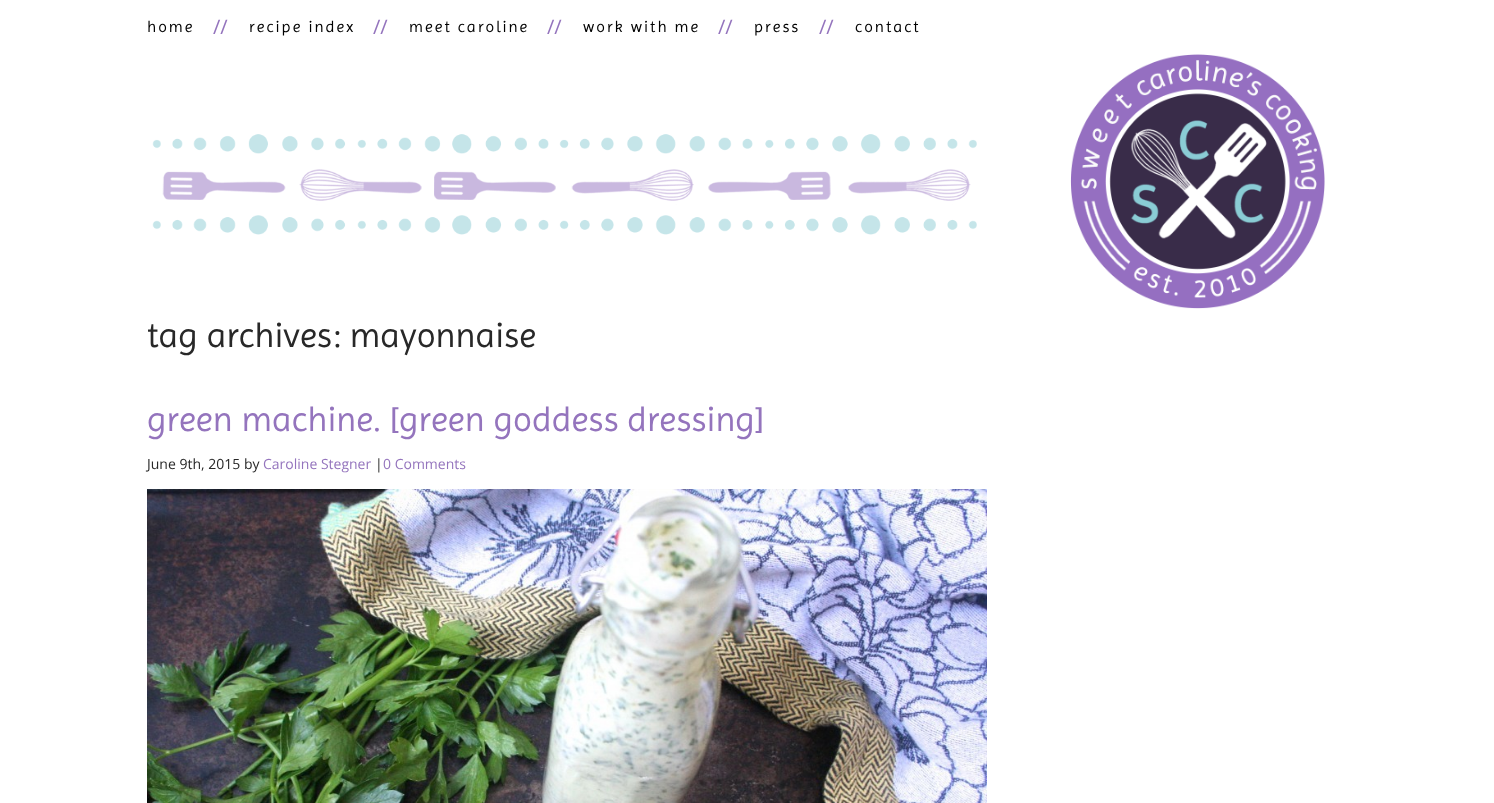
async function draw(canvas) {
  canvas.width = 1494;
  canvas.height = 803;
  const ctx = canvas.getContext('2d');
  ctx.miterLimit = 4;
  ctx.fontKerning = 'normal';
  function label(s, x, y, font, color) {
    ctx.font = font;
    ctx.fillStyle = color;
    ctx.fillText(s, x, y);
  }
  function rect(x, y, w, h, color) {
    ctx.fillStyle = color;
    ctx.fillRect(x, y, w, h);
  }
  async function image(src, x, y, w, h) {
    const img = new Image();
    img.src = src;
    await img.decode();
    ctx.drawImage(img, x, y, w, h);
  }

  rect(0, 0, 1494, 803, '#fff');
  ctx.letterSpacing = '2px';
  label('home', 147, 32, '16px Imprima', '#000');
  ctx.letterSpacing = '0px';
  label('//', 213, 34, '20px Open Sans', '#9474bd');
  ctx.letterSpacing = '2px';
  label('recipe index', 249, 32, '16px Imprima', '#000');
  ctx.letterSpacing = '0px';
  label('//', 373, 34, '20px Open Sans', '#9474bd');
  ctx.letterSpacing = '2px';
  label('meet caroline', 409, 32, '16px Imprima', '#000');
  ctx.letterSpacing = '0px';
  label('//', 547, 34, '20px Open Sans', '#9474bd');
  ctx.letterSpacing = '2px';
  label('work with me', 583, 32, '16px Imprima', '#000');
  ctx.letterSpacing = '0px';
  label('//', 718, 34, '20px Open Sans', '#9474bd');
  ctx.letterSpacing = '2px';
  label('press', 754, 32, '16px Imprima', '#000');
  ctx.letterSpacing = '0px';
  label('//', 819, 34, '20px Open Sans', '#9474bd');
  ctx.letterSpacing = '2px';
  label('contact', 855, 32, '16px Imprima', '#000');
  await image('assets/img1.png', 152, 134, 825, 101);
  await image('assets/img2.png', 1070, 54, 255, 255);
  ctx.letterSpacing = '0px';
  label('tag archives: mayonnaise', 147, 347, '35px Imprima', '#282828');
  label('green machine. [green goddess dressing]', 147, 431, '35px Imprima', '#9474bd');
  label('June 9th, 2015 by', 147, 469, '14px Open Sans', '#282828');
  label('Caroline Stegner', 263, 469, '14px Open Sans', '#9474bd');
  label('|', 375, 469, '14px Open Sans', '#282828');
  label('0 Comments', 383, 469, '14px Open Sans', '#9474bd');
  await image('assets/img3.png', 147, 489, 840, 314);
}

draw(document.querySelector('canvas'));
